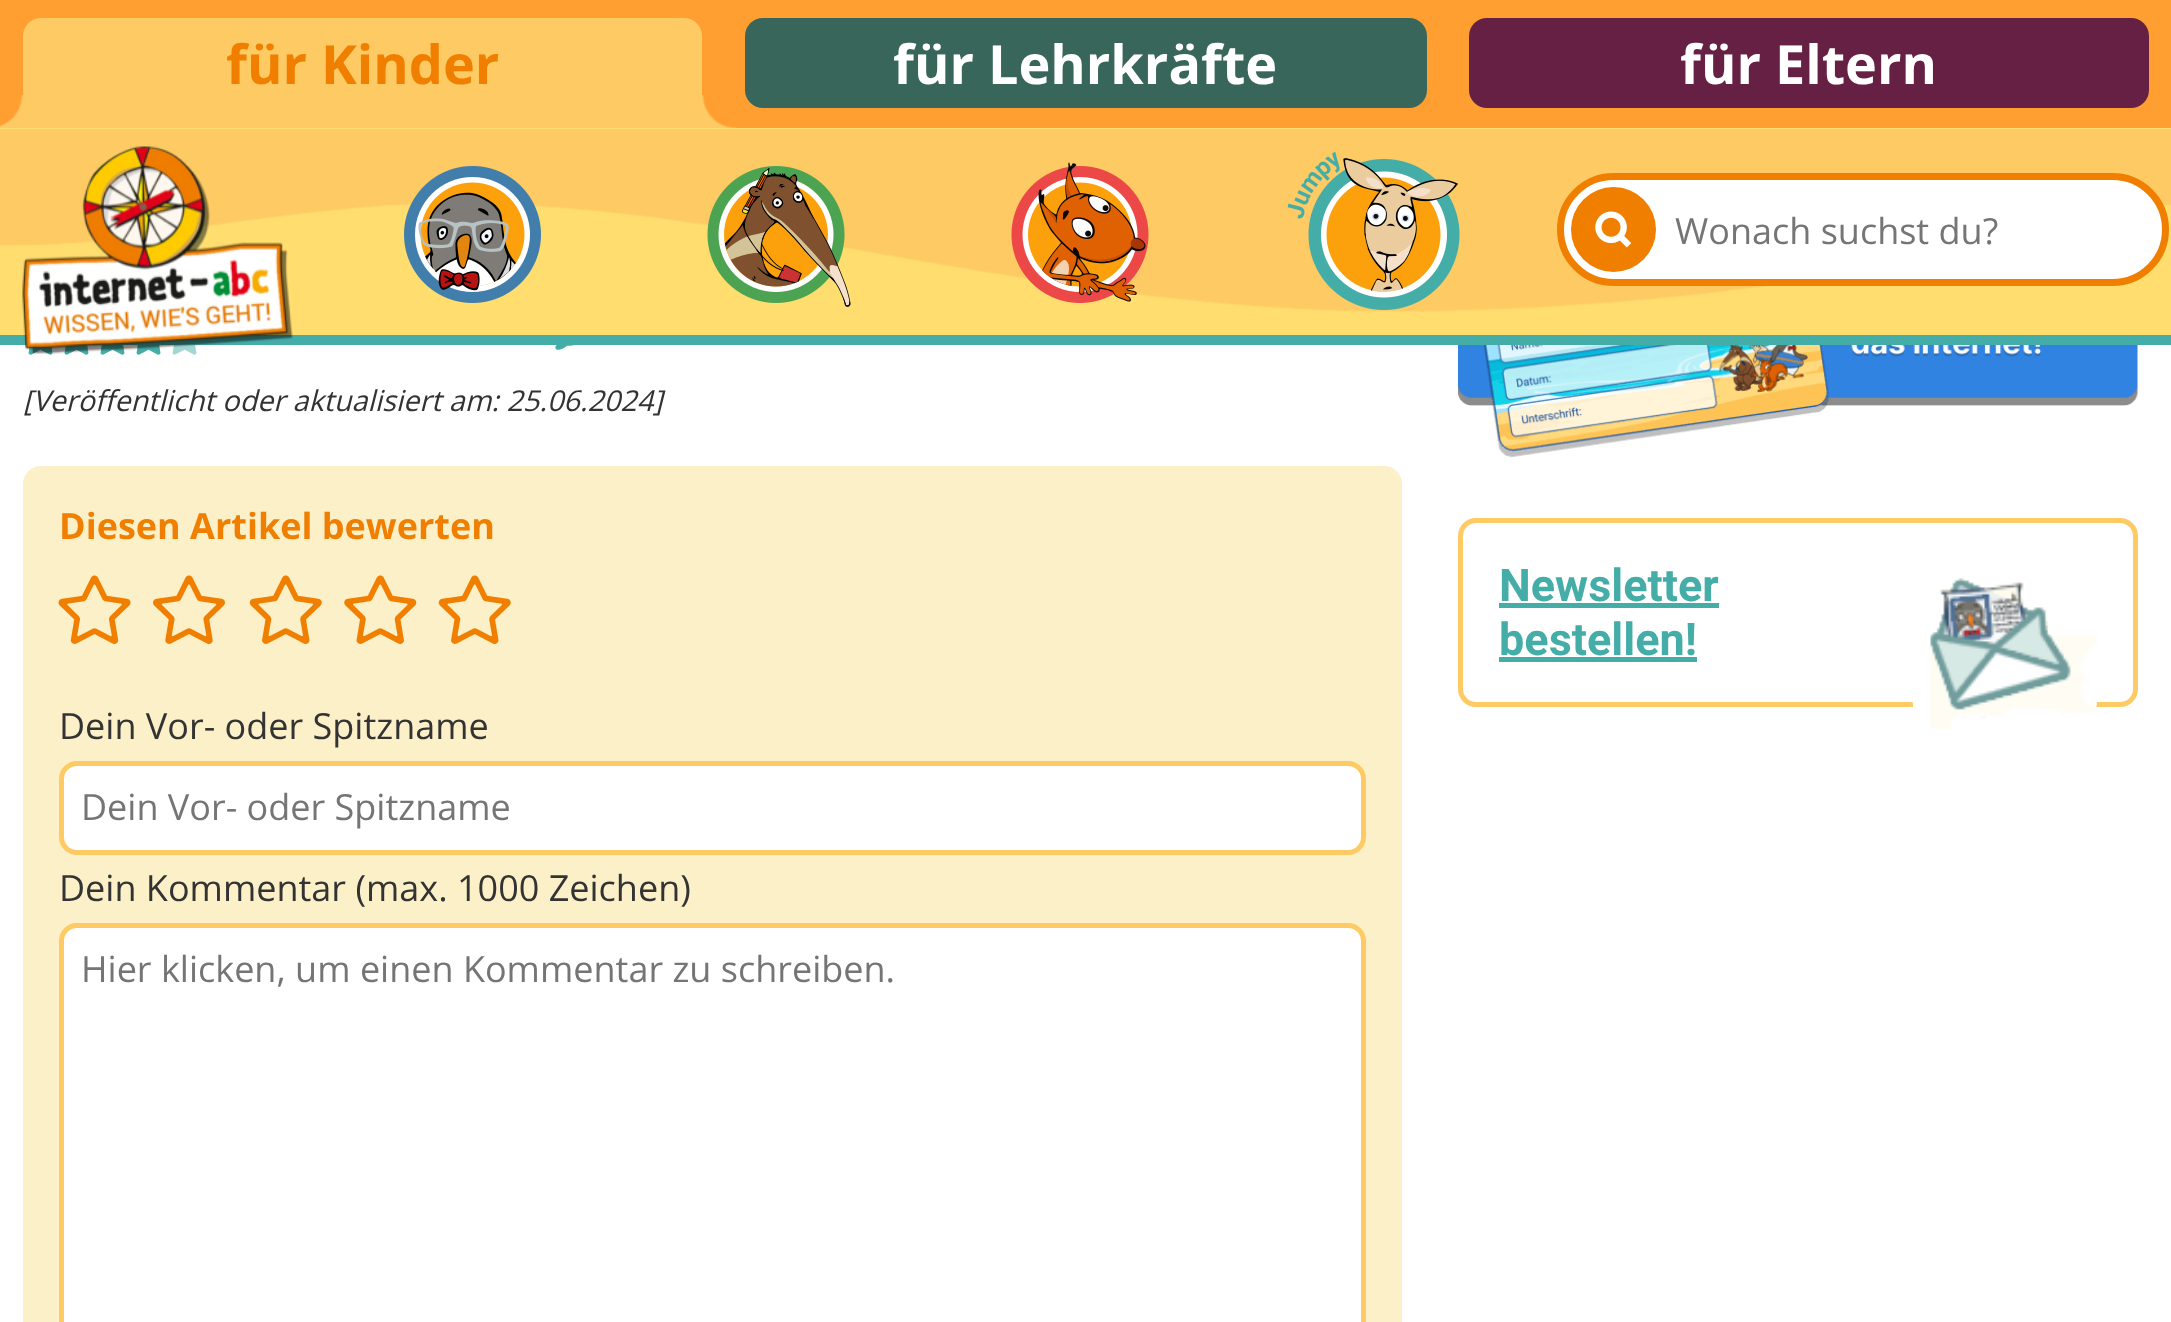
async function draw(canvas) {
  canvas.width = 2171;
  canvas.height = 1322;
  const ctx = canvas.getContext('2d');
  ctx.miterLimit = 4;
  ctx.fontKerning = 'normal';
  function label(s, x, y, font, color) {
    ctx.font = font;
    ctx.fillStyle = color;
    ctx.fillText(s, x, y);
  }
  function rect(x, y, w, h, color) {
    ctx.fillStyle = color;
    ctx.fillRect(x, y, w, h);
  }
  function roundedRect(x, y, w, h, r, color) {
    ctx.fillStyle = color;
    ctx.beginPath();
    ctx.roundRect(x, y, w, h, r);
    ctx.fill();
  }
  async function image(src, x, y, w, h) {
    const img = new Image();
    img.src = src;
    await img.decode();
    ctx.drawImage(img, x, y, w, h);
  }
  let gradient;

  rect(0, 0, 2171, 1322, '#fff');
  rect(0, 0, 2171, 128, '#ff9e31');
  ctx.fillStyle = '#feca63';
  ctx.beginPath();
  ctx.roundRect(23, 18, 679, 110, [18, 18, 0, 0]);
  ctx.fill();
  label('für Kinder', 226, 84, 'bold 54px Open Sans', '#f07f00');
  gradient = ctx.createRadialGradient(-11, 95, 0, -11, 95, 48);
  gradient.addColorStop(0.66, '#ff9e31');
  gradient.addColorStop(0.71, '#feca63');
  ctx.fillStyle = gradient;
  ctx.fillRect(0, 95, 23, 33);
  gradient = ctx.createRadialGradient(736, 95, 0, 736, 95, 48);
  gradient.addColorStop(0.66, '#ff9e31');
  gradient.addColorStop(0.71, '#feca63');
  ctx.fillStyle = gradient;
  ctx.fillRect(702, 95, 34, 33);
  roundedRect(745, 18, 682, 90, 18, '#39665a');
  label('für Lehrkräfte', 893, 84, 'bold 54px Open Sans', '#fff');
  roundedRect(1469, 18, 680, 90, 18, '#662044');
  label('für Eltern', 1680, 84, 'bold 54px Open Sans', '#fff');
  rect(0, 128, 2171, 1, '#ffdd6f');
  rect(0, 202, 2171, 133, '#ffdd6f');
  await image('assets/img1.png', 0, 129, 2171, 183);
  rect(0, 335, 2171, 10, '#45ada8');
  await image('assets/img8.png', 28, 346, 25, 9);
  await image('assets/img9.png', 64, 345, 25, 10);
  await image('assets/img9.png', 100, 345, 25, 10);
  await image('assets/img9.png', 136, 345, 25, 10);
  await image('assets/img9.png', 172, 345, 25, 10);
  await image('assets/img10.png', 28, 346, 25, 9);
  await image('assets/img11.png', 64, 345, 25, 10);
  await image('assets/img11.png', 100, 345, 25, 10);
  await image('assets/img11.png', 136, 345, 25, 10);
  await image('assets/img2.png', 22, 146, 271, 208);
  await image('assets/img3.png', 404, 166, 137, 137);
  await image('assets/img4.png', 707, 166, 144, 141);
  await image('assets/img5.png', 1011, 162, 138, 141);
  await image('assets/img6.png', 1287, 151, 173, 159);
  ctx.fillStyle = '#fff';
  ctx.beginPath();
  ctx.roundRect(1560.5, 176.5, 605, 106, 53);
  ctx.fill();
  ctx.strokeStyle = '#f07f00';
  ctx.lineWidth = 7;
  ctx.stroke();
  ctx.fillStyle = '#f07f00';
  ctx.beginPath();
  ctx.arc(1613.5, 229.5, 42.5, 0, 2 * Math.PI);
  ctx.fill();
  await image('assets/img7.png', 1595, 211, 37, 37);
  label('Wonach suchst du?', 1675, 244, '36px Open Sans', '#757575');
  await image('assets/img12.png', 555, 345, 20, 5);
  label('[Veröffentlicht oder aktualisiert am: 25.06.2024]', 23, 411, 'italic 28.8px Open Sans', '#333');
  roundedRect(23, 466, 1379, 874, 18, '#fcf0c8');
  label('Diesen Artikel bewerten', 59, 539, 'bold 36px Open Sans', '#f07f00');
  await image('assets/img13.png', 58, 575, 73, 70);
  await image('assets/img14.png', 153, 575, 72, 70);
  await image('assets/img15.png', 249, 575, 73, 70);
  await image('assets/img16.png', 344, 575, 73, 69);
  await image('assets/img15.png', 438, 575, 73, 70);
  label('Dein Vor- oder Spitzname', 59, 739, '36px Open Sans', '#333');
  ctx.fillStyle = '#fff';
  ctx.beginPath();
  ctx.roundRect(61.5, 763.5, 1302, 89, 15.5);
  ctx.fill();
  ctx.strokeStyle = '#feca63';
  ctx.lineWidth = 5;
  ctx.stroke();
  label('Dein Vor- oder Spitzname', 81, 820, '36px Open Sans', '#757575');
  label('Dein Kommentar (max. 1000 Zeichen)', 59, 901, '36px Open Sans', '#333');
  ctx.fillStyle = '#fff';
  ctx.beginPath();
  ctx.roundRect(61.5, 925.5, 1302, 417, 15.5);
  ctx.fill();
  ctx.stroke();
  label('Hier klicken, um einen Kommentar zu schreiben.', 81, 982, '36px Open Sans', '#757575');
  await image('assets/img17.png', 1458, 345, 680, 113);
  ctx.beginPath();
  ctx.roundRect(1460.5, 520.5, 675, 184, 15.5);
  ctx.stroke();
  label('Newsletter', 1499, 601, 'bold 45px Roboto', '#45ada8');
  rect(1499, 603, 220, 5, '#45ada8');
  label('bestellen!', 1499, 655, 'bold 45px Roboto', '#45ada8');
  rect(1499, 657, 198, 5, '#45ada8');
  await image('assets/img18.png', 1912, 578, 185, 151);
}

draw(document.querySelector('canvas'));
